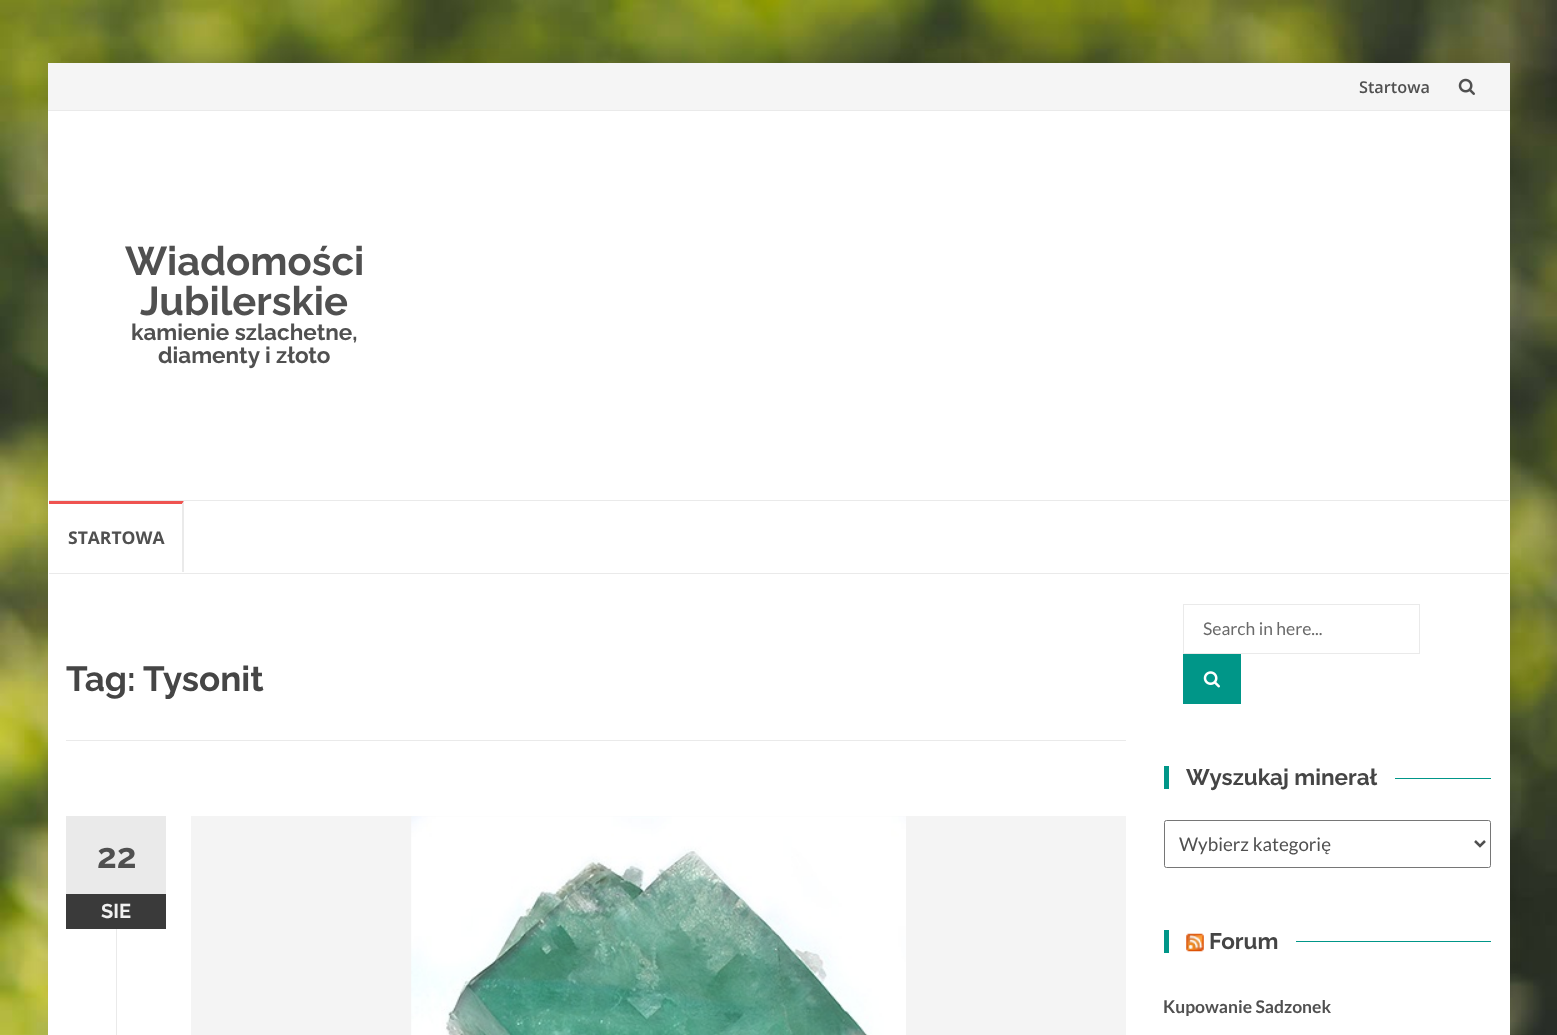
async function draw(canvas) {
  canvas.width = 1557;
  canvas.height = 1035;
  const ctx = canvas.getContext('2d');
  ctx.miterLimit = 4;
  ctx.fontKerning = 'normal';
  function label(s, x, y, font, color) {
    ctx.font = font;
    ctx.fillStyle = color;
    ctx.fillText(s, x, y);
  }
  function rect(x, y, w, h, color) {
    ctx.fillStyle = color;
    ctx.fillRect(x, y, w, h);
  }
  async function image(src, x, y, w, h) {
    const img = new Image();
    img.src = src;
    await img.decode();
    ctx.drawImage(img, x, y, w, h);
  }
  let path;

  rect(0, 0, 1557, 1035, '#fff');
  await image('assets/img1.png', 0, 0, 1557, 1035);
  ctx.fillStyle = '#0000001a';
  ctx.filter = 'blur(9.5px)';
  ctx.beginPath();
  ctx.rect(48, 63, 1462, 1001);
  ctx.fill();
  ctx.filter = 'none';
  rect(48, 111, 1462, 924, '#fff');
  rect(48, 63, 1462, 47, '#f5f5f5');
  rect(48, 110, 1462, 1, '#eaeaea');
  label('Startowa', 1359, 93, '600 16.25px Open Sans', '#505050');
  await image('assets/img2.png', 1458, 78, 17, 17);
  label('Wiadomości', 125, 275, 'bold 40px Raleway', '#505050');
  label('Jubilerskie', 140, 315, 'bold 40px Raleway', '#505050');
  label('kamienie szlachetne,', 131, 340, 'bold 22.5px Raleway', '#505050');
  label('diamenty i złoto', 158, 363, 'bold 22.5px Raleway', '#505050');
  rect(49, 500, 1460, 1, '#eaeaea');
  rect(49, 573, 1460, 1, '#eaeaea');
  ctx.fillStyle = '#ef5350';
  path = new Path2D('M49 501H184L182 504H49Z');
  ctx.fill(path);
  ctx.fillStyle = '#eaeaea';
  path = new Path2D('M184 501V572H182V504Z');
  ctx.fill(path);
  label('STARTOWA', 68, 544, 'bold 17.5px Open Sans', '#505050');
  rect(66, 740, 1060, 1, '#eaeaea');
  label('Tag:', 66, 691, 'bold 35px Raleway', '#454545');
  label('Tysonit', 143, 691, 'bold 35px Raleway', '#454545');
  rect(66, 816, 100, 78, '#eaeaea');
  label('22', 97, 868, 'bold 35px Raleway', '#505050');
  rect(66, 894, 100, 35, '#3a3a3a');
  label('SIE', 101, 918, 'bold 20px Raleway', '#f1f1f1');
  rect(191, 816, 935, 219, '#f4f4f4');
  await image('assets/img3.png', 411, 816, 495, 219);
  rect(446, 851, 422, 184, '#ffffff29');
  rect(116, 929, 1, 106, '#eaeaea');
  ctx.strokeStyle = '#eaeaea';
  ctx.strokeRect(1183.5, 604.5, 236, 49);
  label('Search in here...', 1203, 635, '17.5px Lato', '#6a6a6a');
  rect(1183, 654, 58, 50, '#009688');
  await image('assets/img4.png', 1203, 671, 17, 17);
  rect(1164, 766, 5, 23, '#009688');
  label('Wyszukaj minerał', 1186, 785, 'bold 22.5px Raleway', '#454545');
  rect(1395, 778, 96, 1, '#009688');
  ctx.beginPath();
  ctx.roundRect(1164.5, 820.5, 326, 47, 2);
  ctx.strokeStyle = '#767676';
  ctx.stroke();
  path = new Path2D('M1475 841L1480 846L1485 841');
  ctx.strokeStyle = '#505050';
  ctx.lineWidth = 2.5;
  ctx.stroke(path);
  label('Wybierz kategorię', 1179, 851, '18.75px Lato', '#505050');
  rect(1164, 930, 5, 23, '#009688');
  await image('assets/img5.png', 1186, 933, 18, 19);
  label('Forum', 1209, 949, 'bold 22.5px Raleway', '#454545');
  rect(1296, 941, 195, 1, '#009688');
  label('Kupowanie Sadzonek', 1163, 1013, 'bold 17.5px Lato', '#505050');
}

draw(document.querySelector('canvas'));
